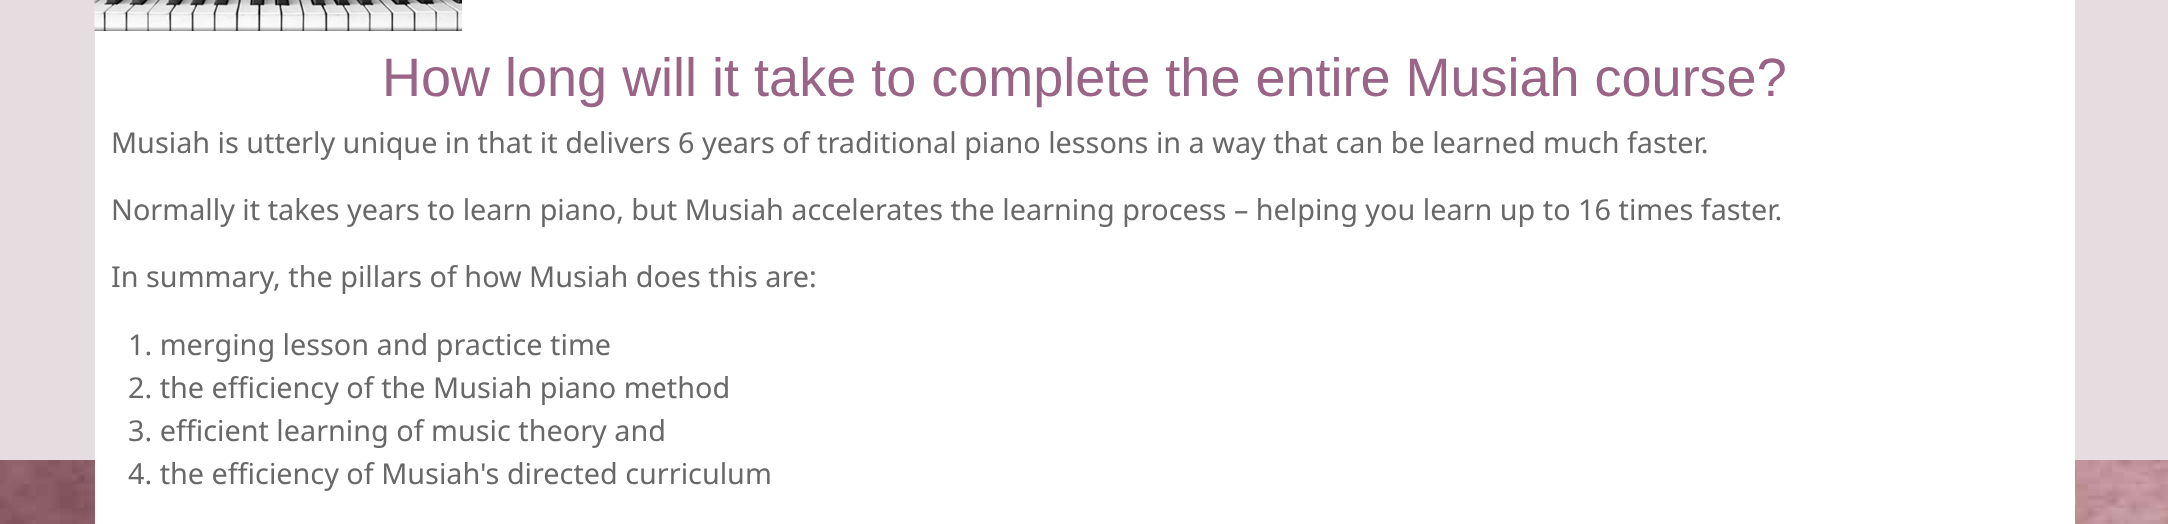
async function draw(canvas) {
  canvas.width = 2168;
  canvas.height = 524;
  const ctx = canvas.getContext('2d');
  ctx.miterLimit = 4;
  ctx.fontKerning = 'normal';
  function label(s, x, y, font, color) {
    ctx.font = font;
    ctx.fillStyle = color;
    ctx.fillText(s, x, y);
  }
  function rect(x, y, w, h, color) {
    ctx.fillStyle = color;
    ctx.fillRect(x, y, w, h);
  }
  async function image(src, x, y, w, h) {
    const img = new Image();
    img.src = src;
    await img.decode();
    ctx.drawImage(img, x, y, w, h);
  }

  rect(0, 0, 2168, 524, '#e5dddf');
  await image('assets/img2.png', 0, 460, 2168, 64);
  rect(95, 0, 1980, 524, '#fff');
  await image('assets/img1.png', 94, 0, 368, 31);
  label('How long will it take to complete the entire Musiah course?', 382, 96, '54px Liberation Sans', '#9a6486');
  label('Musiah is utterly unique in that it delivers 6 years of traditional piano lessons in a way that can be learned much faster.', 111, 153, '28.8px Noto Sans', '#686868');
  label('Normally it takes years to learn piano, but Musiah accelerates the learning process – helping you learn up to 16 times faster.', 111, 220, '28.8px Noto Sans', '#686868');
  label('In summary, the pillars of how Musiah does this are:', 111, 287, '28.8px Noto Sans', '#686868');
  label('1. merging lesson and practice time', 128, 355, '28.8px Noto Sans', '#686868');
  label('2. the efficiency of the Musiah piano method', 128, 398, '28.8px Noto Sans', '#686868');
  label('3. efficient learning of music theory and', 128, 441, '28.8px Noto Sans', '#686868');
  label('4. the efficiency of Musiah\'s directed curriculum', 128, 484, '28.8px Noto Sans', '#686868');
}

draw(document.querySelector('canvas'));
